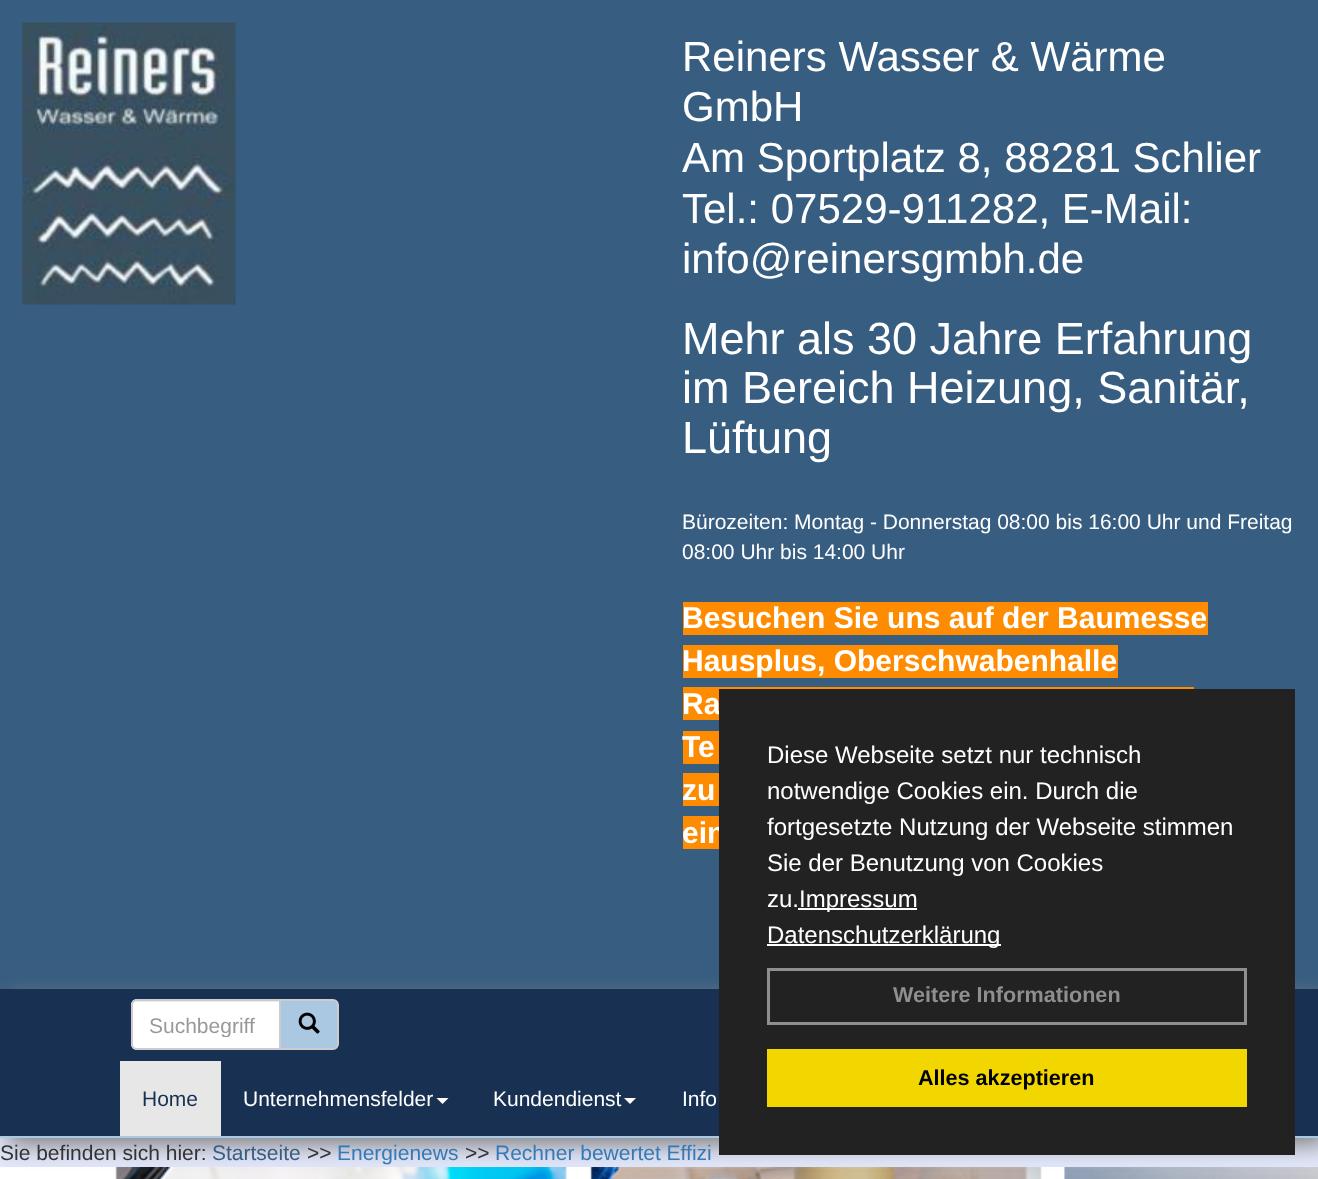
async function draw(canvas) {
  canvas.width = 1318;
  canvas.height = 1179;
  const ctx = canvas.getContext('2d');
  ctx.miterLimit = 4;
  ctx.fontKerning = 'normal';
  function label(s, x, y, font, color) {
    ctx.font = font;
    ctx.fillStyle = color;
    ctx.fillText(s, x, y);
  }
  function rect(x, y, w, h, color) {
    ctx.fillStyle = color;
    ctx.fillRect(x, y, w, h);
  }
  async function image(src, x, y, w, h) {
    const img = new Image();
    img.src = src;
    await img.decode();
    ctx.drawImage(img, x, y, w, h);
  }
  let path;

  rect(0, 0, 1318, 1179, '#e1e6fa');
  rect(0, 0, 1318, 989, '#375d81');
  await image('assets/img1.png', 22, 22, 214, 283);
  label('Reiners Wasser & Wärme', 682, 71, '42px Liberation Sans', '#fff');
  label('GmbH', 682, 121, '42px Liberation Sans', '#fff');
  label('Am Sportplatz 8, 88281 Schlier', 682, 172, '42px Liberation Sans', '#fff');
  label('Tel.: 07529-911282, E-Mail:', 682, 223, '42px Liberation Sans', '#fff');
  label('info@reinersgmbh.de', 682, 273, '42px Liberation Sans', '#fff');
  label('Mehr als 30 Jahre Erfahrung', 682, 354, '45px Liberation Sans', '#fff');
  label('im Bereich Heizung, Sanitär,', 682, 403, '45px Liberation Sans', '#fff');
  label('Lüftung', 682, 453, '45px Liberation Sans', '#fff');
  label('Bürozeiten: Montag - Donnerstag 08:00 bis 16:00 Uhr und Freitag', 682, 529, '21px Liberation Sans', '#fff');
  label('08:00 Uhr bis 14:00 Uhr', 682, 559, '21px Liberation Sans', '#fff');
  rect(683, 602, 525, 33, '#ff8c00');
  label('Besuchen Sie uns auf der Baumesse', 682, 628, 'bold 30px Liberation Sans', '#fff');
  rect(683, 645, 435, 33, '#ff8c00');
  label('Hausplus, Oberschwabenhalle', 682, 671, 'bold 30px Liberation Sans', '#fff');
  rect(683, 687, 511, 33, '#ff8c00');
  label('Ra', 682, 714, 'bold 30px Liberation Sans', '#fff');
  rect(683, 731, 36, 33, '#ff8c00');
  label('Te', 682, 757, 'bold 30px Liberation Sans', '#fff');
  rect(683, 773, 36, 33, '#ff8c00');
  label('zu', 682, 800, 'bold 30px Liberation Sans', '#fff');
  rect(683, 816, 36, 33, '#ff8c00');
  label('ein', 682, 843, 'bold 30px Liberation Sans', '#fff');
  await image('assets/img3.png', 0, 1167, 1318, 12);
  ctx.fillStyle = '#808080';
  ctx.filter = 'blur(11px)';
  ctx.beginPath();
  ctx.rect(8, 996, 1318, 149);
  ctx.fill();
  ctx.filter = 'none';
  rect(0, 989, 1318, 147, '#183152');
  rect(0, 1136, 1318, 2, '#abc8e2');
  ctx.fillStyle = '#fff';
  ctx.beginPath();
  ctx.roundRect(131, 999, 150, 51, [6, 0, 0, 6]);
  ctx.fill();
  ctx.fillStyle = '#ececec';
  path = new Path2D('M136 1002H279V1001H137C134 1001 132 1003 132 1006C132 1004 134 1002 136 1002Z');
  ctx.fill(path);
  ctx.beginPath();
  ctx.roundRect(132, 1000, 148, 49, [5, 0, 0, 5]);
  ctx.strokeStyle = '#ccc';
  ctx.lineWidth = 2;
  ctx.stroke();
  ctx.save();
  ctx.beginPath();
  ctx.rect(150, 1013, 111, 24);
  ctx.clip();
  label('Suchbegriff', 149, 1033, '21px Liberation Sans', '#999');
  ctx.restore();
  ctx.fillStyle = '#abc8e2';
  ctx.beginPath();
  ctx.roundRect(280, 1000, 58, 49, [0, 5, 5, 0]);
  ctx.fill();
  ctx.stroke();
  await image('assets/img2.png', 298, 1012, 22, 22);
  rect(120, 1061, 101, 75, '#e7e7e7');
  label('Home', 142, 1106, '21px Liberation Sans', '#183152');
  label('Unternehmensfelder', 243, 1106, '21px Liberation Sans', '#fff');
  path = new Path2D('M436.5 1098H448.5L442.5 1104Z');
  ctx.fill(path);
  label('Kundendienst', 493, 1106, '21px Liberation Sans', '#fff');
  path = new Path2D('M624 1098H636L630 1104Z');
  ctx.fill(path);
  label('Info', 682, 1106, '21px Liberation Sans', '#fff');
  label('Sie befinden sich hier:', 0, 1160, '21px Liberation Sans', '#333');
  label('Startseite', 212, 1160, '21px Liberation Sans', '#375d81');
  label('>>', 307, 1160, '21px Liberation Sans', '#333');
  label('Energienews', 337, 1160, '21px Liberation Sans', '#337ab7');
  label('>>', 465, 1160, '21px Liberation Sans', '#333');
  label('Rechner bewertet Effizi', 495, 1160, '21px Liberation Sans', '#337ab7');
  rect(719, 689, 576, 466, '#222');
  label('Diese Webseite setzt nur technisch', 767, 763, '24px Liberation Sans', '#fff');
  label('notwendige Cookies ein. Durch die', 767, 799, '24px Liberation Sans', '#fff');
  label('fortgesetzte Nutzung der Webseite stimmen', 767, 835, '24px Liberation Sans', '#fff');
  label('Sie der Benutzung von Cookies', 767, 871, '24px Liberation Sans', '#fff');
  label('zu.', 767, 907, '24px Liberation Sans', '#fff');
  rect(798, 908, 119, 2, '#fff');
  label('Impressum', 799, 907, '24px Liberation Sans', '#fff');
  rect(767, 944, 234, 2, '#fff');
  label('Datenschutzerklärung', 767, 943, '24px Liberation Sans', '#fff');
  ctx.strokeStyle = '#8f8f8f';
  ctx.lineWidth = 3;
  ctx.strokeRect(768.5, 969.5, 477, 54);
  label('Weitere Informationen', 893, 1002, 'bold 21.6px Liberation Sans', '#8f8f8f');
  rect(767, 1049, 480, 58, '#f1d600');
  label('Alles akzeptieren', 918, 1085, 'bold 21.6px Liberation Sans', '#000');
}

draw(document.querySelector('canvas'));
